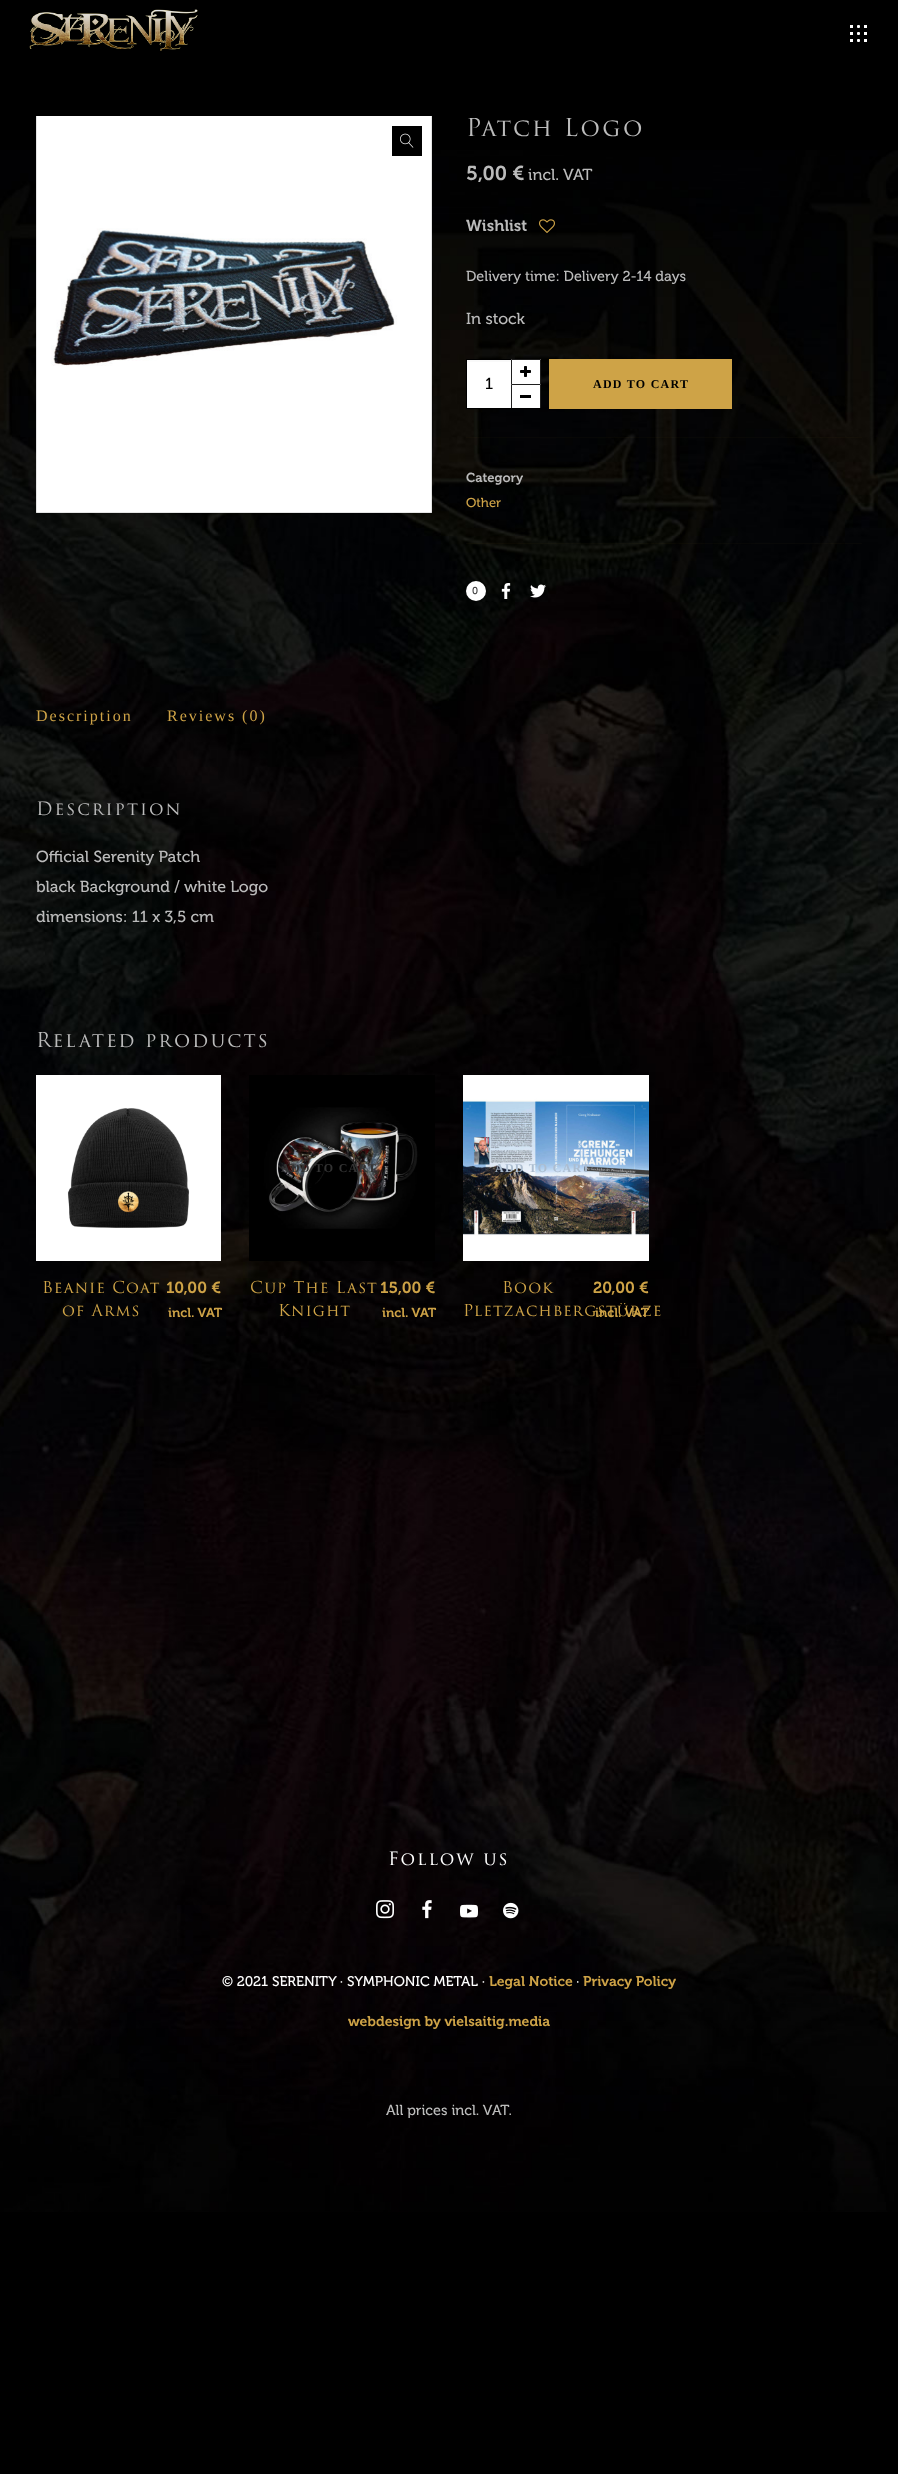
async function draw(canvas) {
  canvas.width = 898;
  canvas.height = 2474;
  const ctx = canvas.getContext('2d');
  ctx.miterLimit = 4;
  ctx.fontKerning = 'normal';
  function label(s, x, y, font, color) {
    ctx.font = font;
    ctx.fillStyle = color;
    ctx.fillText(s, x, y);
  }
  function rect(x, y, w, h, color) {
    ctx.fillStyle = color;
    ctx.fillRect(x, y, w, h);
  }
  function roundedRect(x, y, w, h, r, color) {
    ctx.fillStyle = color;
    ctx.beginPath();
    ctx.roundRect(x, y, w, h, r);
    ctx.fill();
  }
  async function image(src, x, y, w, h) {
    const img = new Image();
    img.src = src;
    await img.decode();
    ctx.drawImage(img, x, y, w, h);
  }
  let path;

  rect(0, 0, 898, 2474, '#000');
  await image('assets/img1.png', 0, 150, 898, 2062);
  await image('assets/img2.png', 29, 9, 169, 42);
  roundedRect(857, 25, 3, 3, 1, '#fff');
  rect(850, 25, 3, 3, '#fff');
  rect(864, 25, 3, 3, '#fff');
  roundedRect(857, 32, 3, 3, 1, '#fff');
  rect(850, 32, 3, 3, '#fff');
  rect(864, 32, 3, 3, '#fff');
  roundedRect(857, 39, 3, 3, 1, '#fff');
  rect(850, 39, 3, 3, '#fff');
  rect(864, 39, 3, 3, '#fff');
  await image('assets/img3.png', 36, 116, 396, 397);
  rect(392, 126, 30, 30, '#000');
  await image('assets/img4.png', 400, 133, 14, 15);
  ctx.letterSpacing = '2px';
  label('Patch Logo', 466, 136, '24px "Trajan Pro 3"', '#bbb');
  ctx.letterSpacing = '0px';
  label('5,00 €', 466, 180, '600 20px "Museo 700"', '#bbb');
  label('incl. VAT', 528, 180, '16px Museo', '#bbb');
  label('Wishlist', 466, 231, '600 16px "Museo 700"', '#bbb');
  await image('assets/img5.png', 539, 219, 16, 14);
  label('Delivery time: Delivery 2-14 days', 466, 281, '14.4px Museo', '#bbb');
  label('In stock', 466, 324, '16px Museo', '#bbb');
  rect(467, 362, 44, 46, '#fff');
  rect(467, 360, 44, 2, '#f9f9f9');
  ctx.strokeStyle = '#000';
  ctx.strokeRect(466.5, 359.5, 74, 49);
  label('1', 485, 389, '16px Museo', '#000');
  rect(511, 359, 30, 49, '#fff');
  ctx.fillStyle = '#1f1f1f';
  path = new Path2D('M511 359H541L540 360H512Z');
  ctx.fill(path);
  ctx.fillStyle = '#000000e0';
  path = new Path2D('M541 359V384H540V360ZM511 384V359L512 360V384Z');
  ctx.fill(path);
  await image('assets/img6.png', 520, 366, 11, 11);
  ctx.fillStyle = '#1f1f1f';
  path = new Path2D('M511 384H541L540 385H512Z');
  ctx.fill(path);
  ctx.fillStyle = '#000000e0';
  path = new Path2D('M541 384V408H540V385ZM511 408V384L512 385V408Z');
  ctx.fill(path);
  rect(520, 395, 11, 3, '#000');
  rect(549, 359, 183, 50, '#cea347');
  ctx.letterSpacing = '1.25px';
  label('ADD TO CART', 593, 388, 'bold 12px Liberation Serif', '#000');
  rect(466, 437, 396, 1, '#cea34708');
  ctx.letterSpacing = '0px';
  label('Category', 466, 482, '600 13px "Museo 700"', '#bbb');
  label('Other', 466, 507, '13px Museo', '#cea347');
  rect(466, 543, 396, 1, '#cea34708');
  ctx.fillStyle = '#fff';
  ctx.beginPath();
  ctx.arc(476, 591, 10, 0, 2 * Math.PI);
  ctx.fill();
  label('0', 472, 594, '10px Museo', '#333');
  await image('assets/img7.png', 501, 583, 10, 16);
  await image('assets/img8.png', 530, 584, 16, 14);
  ctx.letterSpacing = '2px';
  label('Description', 36, 721, '16px Liberation Serif', '#cea347');
  label('Reviews (0)', 167, 721, '16px Liberation Serif', '#cea347');
  label('Description', 36, 815, '18px "Trajan Pro 3"', '#bbb');
  ctx.letterSpacing = '0px';
  label('Official Serenity Patch', 36, 862, '16px Museo', '#bbb');
  label('black Background / white Logo', 36, 892, '16px Museo', '#bbb');
  label('dimensions: 11 x 3,5 cm', 36, 922, '16px Museo', '#bbb');
  ctx.letterSpacing = '2px';
  label('Related products', 36, 1047, '20px "Trajan Pro 3"', '#bbb');
  await image('assets/img9.png', 36, 1075, 185, 186);
  ctx.letterSpacing = '1px';
  label('Beanie Coat', 42, 1293, '16px "Trajan Pro 3"', '#cea347');
  label('of Arms', 62, 1316, '16px "Trajan Pro 3"', '#cea347');
  ctx.letterSpacing = '0px';
  label('10,00 €', 166, 1293, '600 16px "Museo 700"', '#cea347');
  label('incl. VAT', 168, 1317, '600 13px "Museo 700"', '#cea347');
  await image('assets/img10.png', 249, 1075, 186, 186);
  ctx.letterSpacing = '1.25px';
  label('ADD TO CART', 281, 1172, 'bold 12px Liberation Serif', '#333');
  ctx.letterSpacing = '1px';
  label('Cup The Last', 250, 1293, '16px "Trajan Pro 3"', '#cea347');
  label('Knight', 278, 1316, '16px "Trajan Pro 3"', '#cea347');
  ctx.letterSpacing = '0px';
  label('15,00 €', 380, 1293, '600 16px "Museo 700"', '#cea347');
  label('incl. VAT', 382, 1317, '600 13px "Museo 700"', '#cea347');
  await image('assets/img11.png', 463, 1075, 186, 186);
  ctx.letterSpacing = '1.25px';
  label('ADD TO CART', 495, 1172, 'bold 12px Liberation Serif', '#acbdd0');
  ctx.letterSpacing = '1px';
  label('Book', 502, 1293, '16px "Trajan Pro 3"', '#cea347');
  label('Pletzachbergstürze', 463, 1316, '16px "Trajan Pro 3"', '#cea347');
  ctx.letterSpacing = '0px';
  label('20,00 €', 593, 1293, '600 16px "Museo 700"', '#cea347');
  label('incl. VAT', 595, 1317, '600 13px "Museo 700"', '#cea347');
  ctx.letterSpacing = '2px';
  label('Follow us', 388, 1865, '18px "Trajan Pro 3"', '#fff');
  await image('assets/img12.png', 376, 1900, 18, 19);
  await image('assets/img13.png', 422, 1900, 10, 19);
  await image('assets/img14.png', 460, 1904, 18, 14);
  await image('assets/img15.png', 503, 1902, 16, 17);
  ctx.letterSpacing = '0px';
  label('© 2021 SERENITY · SYMPHONIC METAL ·', 222, 1986, '14px Museo', '#fff');
  label('Legal Notice', 489, 1986, '600 14px "Museo 700"', '#cea347');
  label('·', 576, 1986, '14px Museo', '#fff');
  label('Privacy Policy', 583, 1986, '600 14px "Museo 700"', '#cea347');
  label('webdesign by vielsaitig.media', 348, 2026, '600 14px "Museo 700"', '#cea347');
  label('All prices incl. VAT.', 386, 2115, '14.4px Museo', '#bbb');
}

draw(document.querySelector('canvas'));
